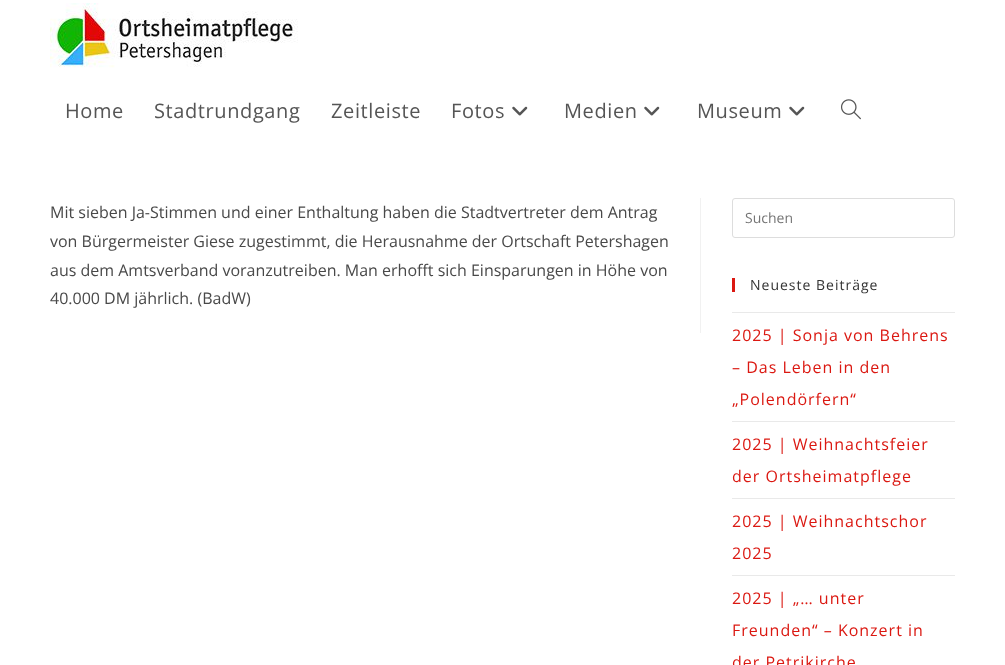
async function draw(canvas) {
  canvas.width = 1005;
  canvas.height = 665;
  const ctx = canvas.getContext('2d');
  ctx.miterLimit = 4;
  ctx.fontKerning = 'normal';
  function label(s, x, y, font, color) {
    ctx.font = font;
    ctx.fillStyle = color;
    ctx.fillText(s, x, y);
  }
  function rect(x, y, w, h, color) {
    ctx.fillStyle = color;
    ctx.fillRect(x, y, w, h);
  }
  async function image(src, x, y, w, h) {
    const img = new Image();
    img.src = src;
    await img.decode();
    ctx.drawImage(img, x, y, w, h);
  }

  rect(0, 0, 1005, 665, '#fff');
  await image('assets/img1.png', 50, 3, 248, 65);
  ctx.letterSpacing = '0.6px';
  label('Home', 65, 118, '20px Open Sans', '#555');
  label('Stadtrundgang', 154, 118, '20px Open Sans', '#555');
  label('Zeitleiste', 331, 118, '20px Open Sans', '#555');
  label('Fotos', 451, 118, '20px Open Sans', '#555');
  await image('assets/img2.png', 512, 106, 16, 10);
  label('Medien', 564, 118, '20px Open Sans', '#555');
  await image('assets/img2.png', 644, 106, 16, 10);
  label('Museum', 697, 118, '20px Open Sans', '#555');
  await image('assets/img2.png', 789, 106, 16, 10);
  await image('assets/img3.png', 841, 99, 20, 21);
  rect(700, 198, 1, 135, '#f1f1f1');
  ctx.letterSpacing = '0px';
  label('Mit sieben Ja-Stimmen und einer Enthaltung haben die Stadtvertreter dem Antrag', 50, 218, '16px Open Sans', '#494949');
  label('von Bürgermeister Giese zugestimmt, die Herausnahme der Ortschaft Petershagen', 50, 247, '16px Open Sans', '#494949');
  label('aus dem Amtsverband voranzutreiben. Man erhofft sich Einsparungen in Höhe von', 50, 276, '16px Open Sans', '#494949');
  label('40.000 DM jährlich. (BadW)', 50, 304, '16px Open Sans', '#494949');
  ctx.beginPath();
  ctx.roundRect(732.5, 198.5, 222, 39, 2.5);
  ctx.strokeStyle = '#ddd';
  ctx.stroke();
  label('Suchen', 745, 223, '14px Open Sans', '#757575');
  rect(732, 278, 3, 14, '#db1811');
  ctx.letterSpacing = '1px';
  label('Neueste Beiträge', 750, 290, '14px Open Sans', '#333');
  rect(732, 312, 223, 1, '#e9e9e9');
  rect(732, 421, 223, 1, '#e9e9e9');
  label('2025 | Sonja von Behrens', 732, 341, '16px Open Sans', '#db1811');
  label('– Das Leben in den', 732, 373, '16px Open Sans', '#db1811');
  label('„Polendörfern“', 732, 405, '16px Open Sans', '#db1811');
  rect(732, 498, 223, 1, '#e9e9e9');
  label('2025 | Weihnachtsfeier', 732, 450, '16px Open Sans', '#db1811');
  label('der Ortsheimatpflege', 732, 482, '16px Open Sans', '#db1811');
  rect(732, 575, 223, 1, '#e9e9e9');
  label('2025 | Weihnachtschor', 732, 527, '16px Open Sans', '#db1811');
  label('2025', 732, 559, '16px Open Sans', '#db1811');
  label('2025 | „… unter', 732, 604, '16px Open Sans', '#db1811');
  label('Freunden“ – Konzert in', 732, 636, '16px Open Sans', '#db1811');
  label('der Petrikirche', 732, 668, '16px Open Sans', '#db1811');
}

draw(document.querySelector('canvas'));
